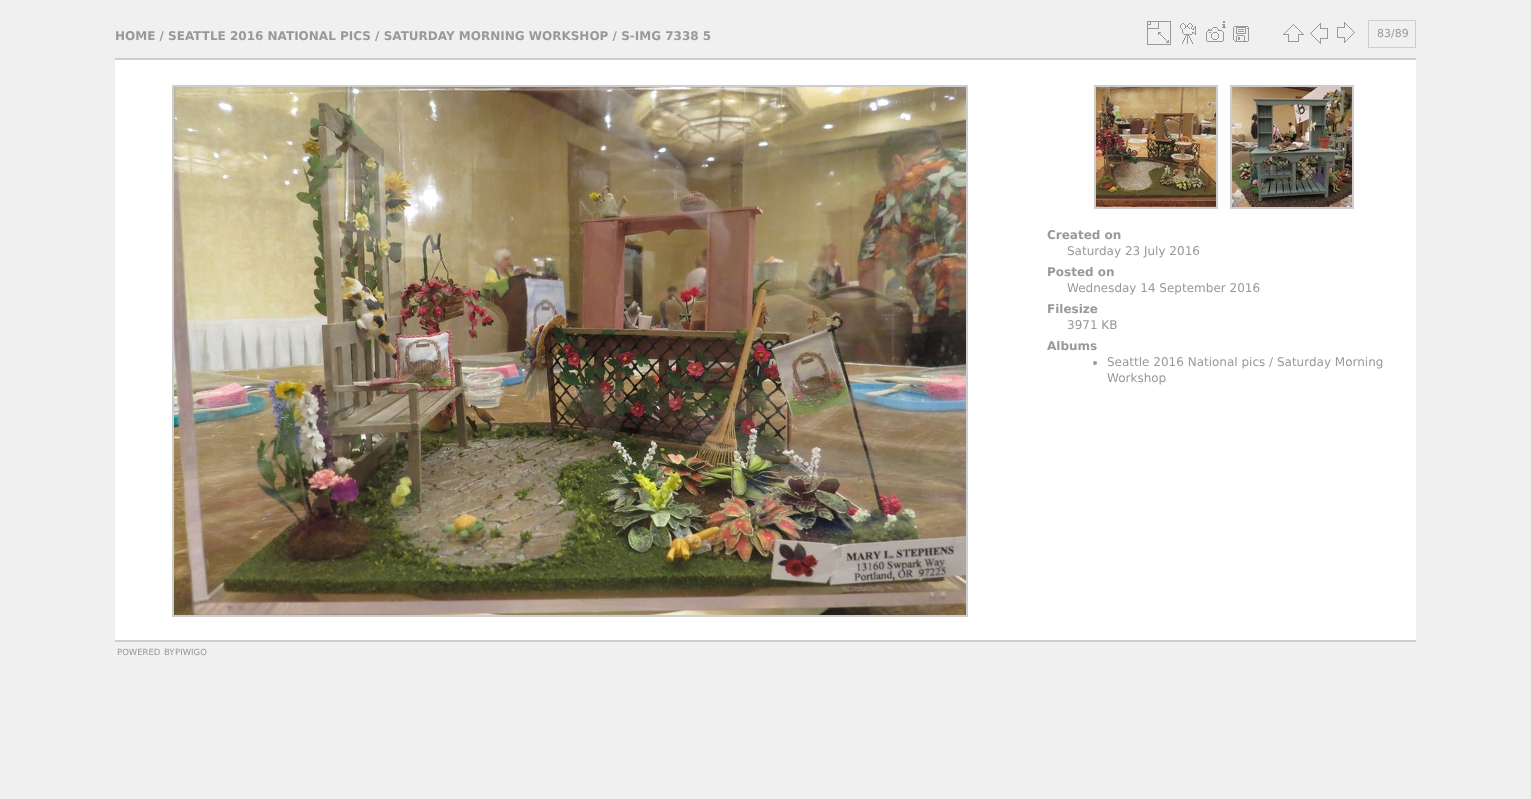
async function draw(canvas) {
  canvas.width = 1531;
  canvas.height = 799;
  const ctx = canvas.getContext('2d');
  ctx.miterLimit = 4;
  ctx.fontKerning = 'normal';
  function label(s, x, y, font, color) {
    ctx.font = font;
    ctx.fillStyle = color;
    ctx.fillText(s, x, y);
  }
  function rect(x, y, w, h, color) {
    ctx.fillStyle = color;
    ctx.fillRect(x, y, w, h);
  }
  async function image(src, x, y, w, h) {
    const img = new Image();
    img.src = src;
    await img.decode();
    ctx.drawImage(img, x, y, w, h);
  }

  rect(0, 0, 1531, 799, '#f0f0f0');
  rect(115, 640, 1301, 2, '#cdcdcd');
  label('HOME / SEATTLE 2016 NATIONAL PICS / SATURDAY MORNING WORKSHOP / S-IMG 7338 5', 115, 40, 'bold 12px DejaVu Sans', '#999');
  await image('assets/img1.png', 1147, 21, 24, 24);
  await image('assets/img2.png', 1180, 23, 16, 21);
  await image('assets/img3.png', 1206, 21, 20, 21);
  await image('assets/img4.png', 1233, 26, 16, 16);
  await image('assets/img5.png', 1283, 24, 21, 18);
  await image('assets/img6.png', 1310, 23, 18, 21);
  await image('assets/img7.png', 1337, 22, 18, 21);
  ctx.strokeStyle = '#cdcdcd';
  ctx.strokeRect(1368.5, 20.5, 47, 27);
  label('83/89', 1377, 37, '11px DejaVu Sans', '#999');
  rect(115, 60, 1301, 580, '#fff');
  rect(115, 58, 1301, 2, '#cdcdcd');
  ctx.lineWidth = 2;
  ctx.strokeRect(173, 86, 794, 530);
  await image('assets/img8.png', 174, 87, 792, 528);
  ctx.strokeRect(1095, 86, 122, 122);
  await image('assets/img9.png', 1096, 87, 120, 120);
  ctx.strokeRect(1231, 86, 122, 122);
  await image('assets/img10.png', 1232, 87, 120, 120);
  label('Created on', 1047, 239, 'bold 12px DejaVu Sans', '#999');
  label('Saturday 23 July 2016', 1067, 255, '12px DejaVu Sans', '#999');
  label('Posted on', 1047, 276, 'bold 12px DejaVu Sans', '#999');
  label('Wednesday 14 September 2016', 1067, 292, '12px DejaVu Sans', '#999');
  label('Filesize', 1047, 313, 'bold 12px DejaVu Sans', '#999');
  label('3971 KB', 1067, 329, '12px DejaVu Sans', '#999');
  label('Albums', 1047, 350, 'bold 12px DejaVu Sans', '#999');
  ctx.beginPath();
  ctx.arc(1095, 363, 2, 0, 2 * Math.PI);
  ctx.fill();
  label('Seattle 2016 National pics / Saturday Morning', 1107, 366, '12px DejaVu Sans', '#999');
  label('Workshop', 1107, 382, '12px DejaVu Sans', '#999');
  label('POWERED', 117, 655, '8.5px DejaVu Sans', '#999');
  label('BY', 164, 655, '8.5px DejaVu Sans', '#999');
  label('PIWIGO', 175, 655, '8.5px DejaVu Sans', '#999');
}

draw(document.querySelector('canvas'));
